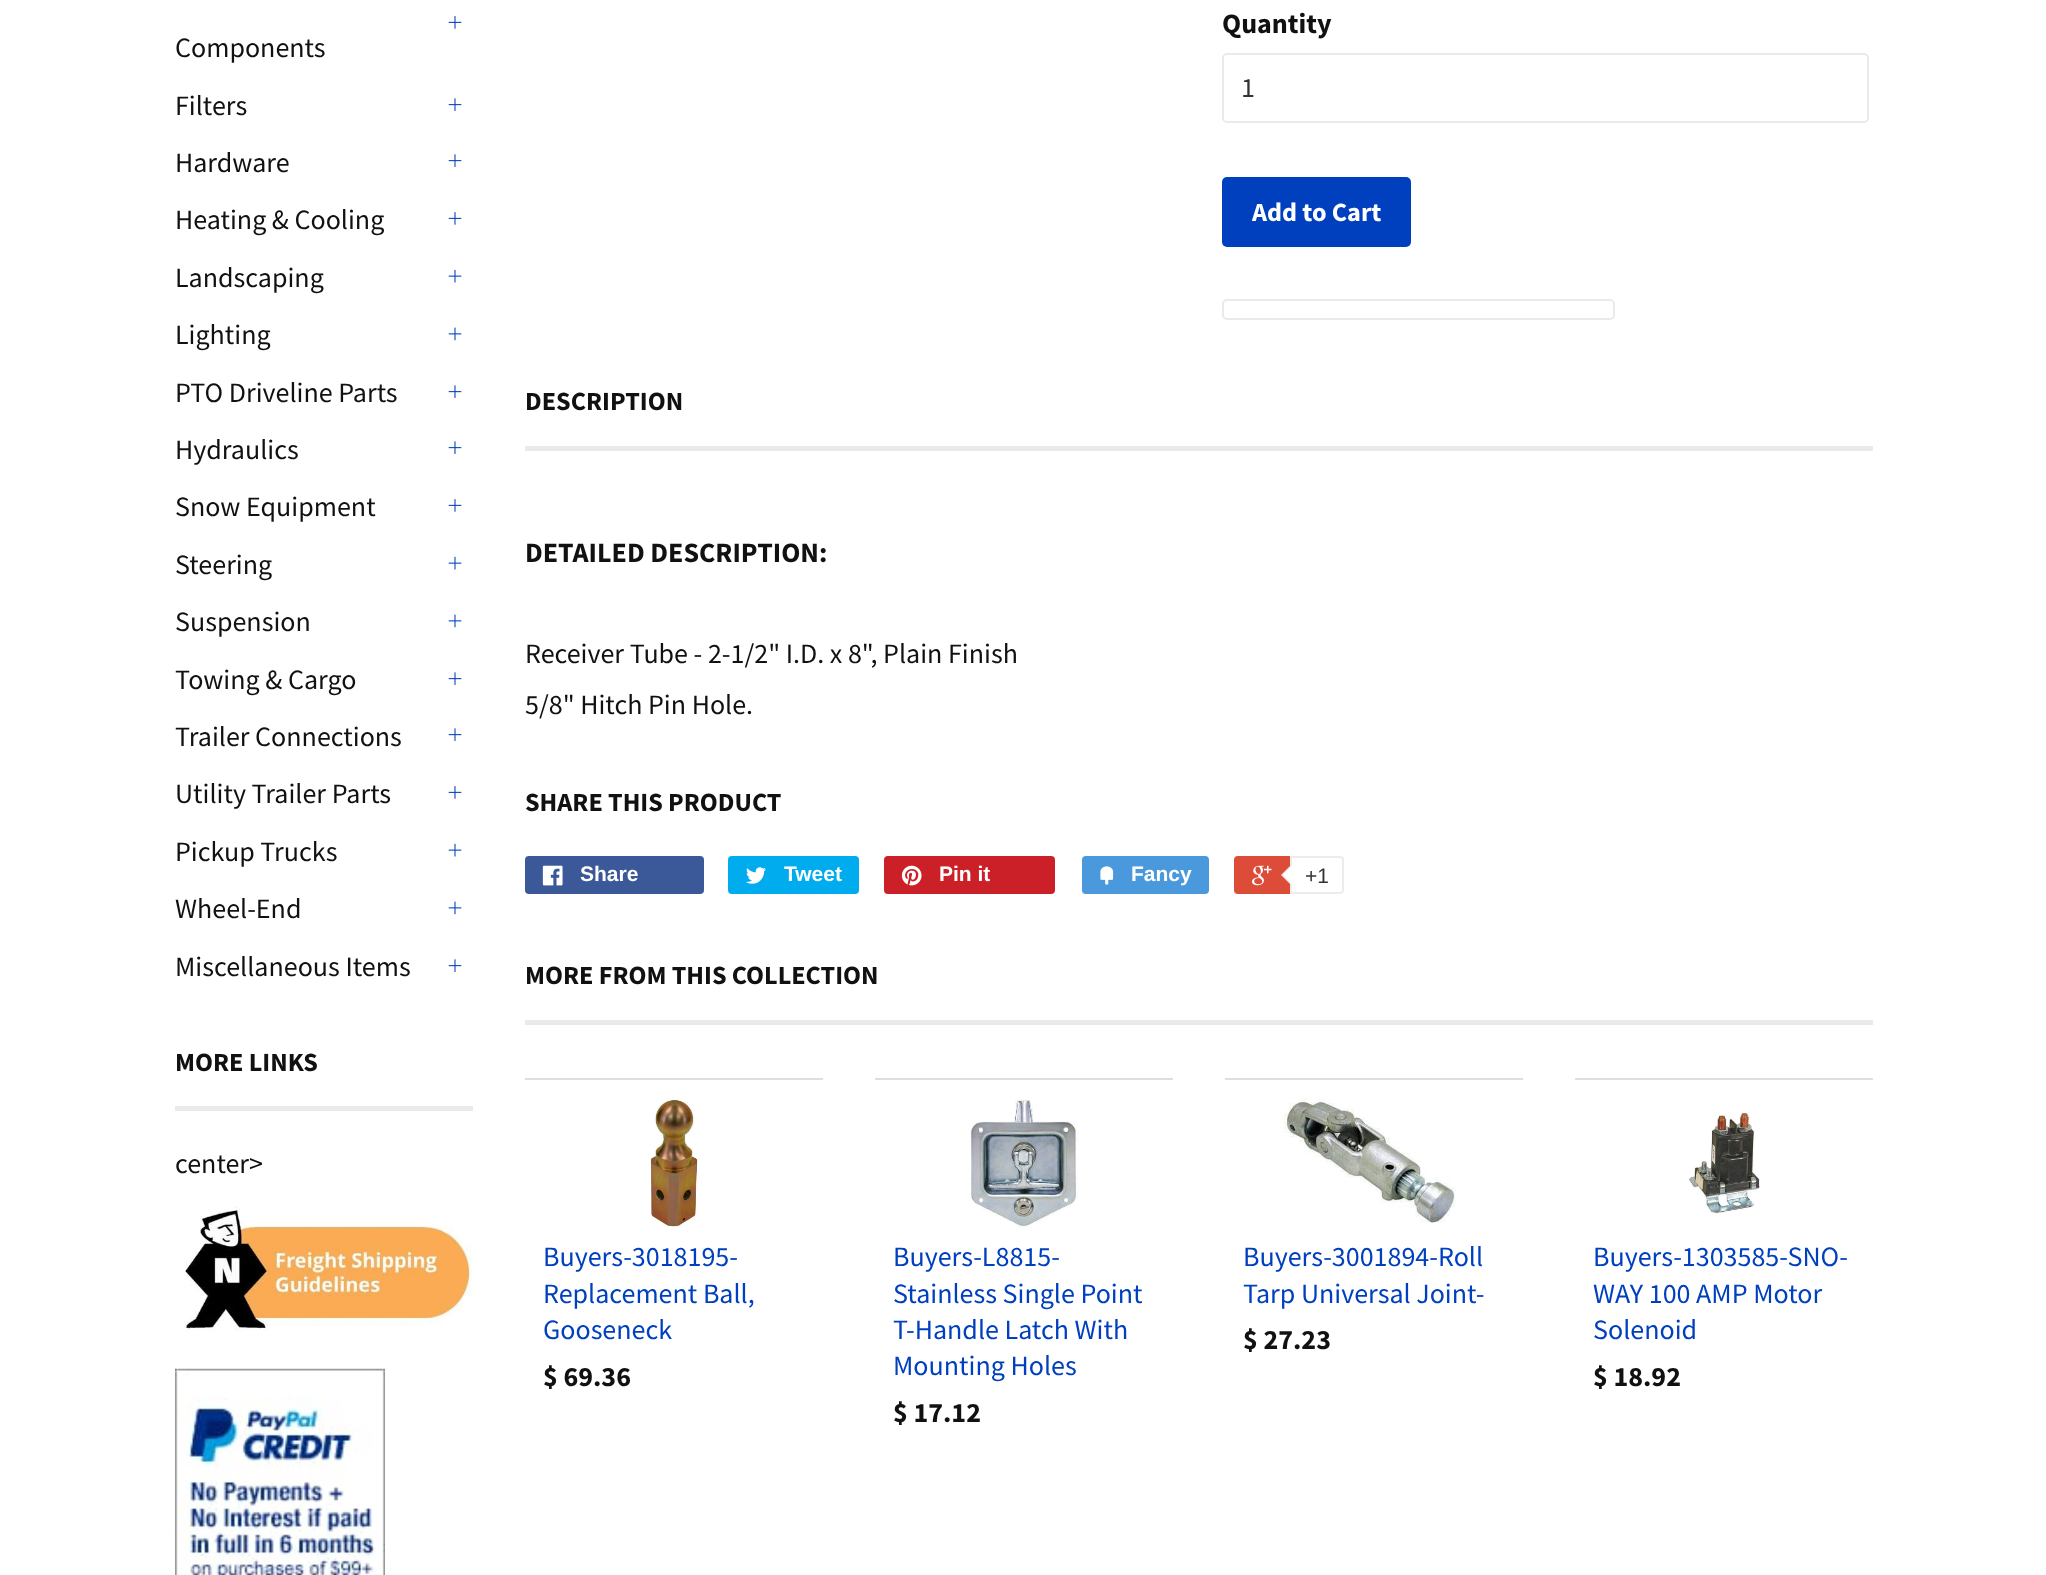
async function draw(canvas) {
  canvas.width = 2046;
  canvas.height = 1575;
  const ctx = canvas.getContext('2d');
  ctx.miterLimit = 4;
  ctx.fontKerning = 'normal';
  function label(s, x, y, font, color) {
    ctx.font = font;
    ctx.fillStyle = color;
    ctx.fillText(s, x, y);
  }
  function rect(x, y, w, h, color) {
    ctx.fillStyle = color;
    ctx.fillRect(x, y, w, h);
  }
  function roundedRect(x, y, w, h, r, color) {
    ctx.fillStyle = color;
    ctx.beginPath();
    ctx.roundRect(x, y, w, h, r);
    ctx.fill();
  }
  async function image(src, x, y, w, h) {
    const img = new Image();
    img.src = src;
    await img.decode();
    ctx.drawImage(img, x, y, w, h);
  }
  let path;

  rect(0, 0, 2046, 1575, '#fff');
  await image('assets/img1.png', 448, 16, 14, 13);
  label('Components', 175, 57, '28px Source Sans Pro', '#111');
  label('Filters', 175, 115, '28px Source Sans Pro', '#111');
  await image('assets/img2.png', 448, 98, 14, 13);
  label('Hardware', 175, 172, '28px Source Sans Pro', '#111');
  await image('assets/img2.png', 448, 154, 14, 13);
  label('Heating & Cooling', 175, 229, '28px Source Sans Pro', '#111');
  await image('assets/img1.png', 448, 212, 14, 13);
  label('Landscaping', 175, 287, '28px Source Sans Pro', '#111');
  await image('assets/img3.png', 448, 269, 14, 14);
  label('Lighting', 175, 344, '28px Source Sans Pro', '#111');
  await image('assets/img4.png', 448, 327, 14, 14);
  label('PTO Driveline Parts', 175, 402, '28px Source Sans Pro', '#111');
  await image('assets/img2.png', 448, 385, 14, 13);
  label('Hydraulics', 175, 459, '28px Source Sans Pro', '#111');
  await image('assets/img2.png', 448, 441, 14, 13);
  label('Snow Equipment', 175, 516, '28px Source Sans Pro', '#111');
  await image('assets/img1.png', 448, 499, 14, 13);
  label('Steering', 175, 574, '28px Source Sans Pro', '#111');
  await image('assets/img3.png', 448, 556, 14, 14);
  label('Suspension', 175, 631, '28px Source Sans Pro', '#111');
  await image('assets/img4.png', 448, 614, 14, 14);
  label('Towing & Cargo', 175, 689, '28px Source Sans Pro', '#111');
  await image('assets/img2.png', 448, 672, 14, 13);
  label('Trailer Connections', 175, 746, '28px Source Sans Pro', '#111');
  await image('assets/img2.png', 448, 728, 14, 13);
  label('Utility Trailer Parts', 175, 803, '28px Source Sans Pro', '#111');
  await image('assets/img1.png', 448, 786, 14, 13);
  label('Pickup Trucks', 175, 861, '28px Source Sans Pro', '#111');
  await image('assets/img3.png', 448, 843, 14, 14);
  label('Wheel-End', 175, 918, '28px Source Sans Pro', '#111');
  await image('assets/img4.png', 448, 901, 14, 14);
  label('Miscellaneous Items', 175, 976, '28px Source Sans Pro', '#111');
  await image('assets/img2.png', 448, 959, 14, 13);
  rect(175, 1106, 298, 5, '#eaeaea');
  label('MORE LINKS', 175, 1071, 'bold 26.25px Source Sans Pro', '#111');
  label('center>', 175, 1173, '28px Source Sans Pro', '#111');
  await image('assets/img5.png', 185, 1206, 288, 125);
  await image('assets/img6.png', 175, 1368, 210, 207);
  label('Quantity', 1222, 33, 'bold 28px Source Sans Pro', '#111');
  ctx.beginPath();
  ctx.roundRect(1223, 54, 645, 68, 4);
  ctx.strokeStyle = '#eaeaea';
  ctx.lineWidth = 2;
  ctx.stroke();
  label('1', 1241, 97, '28px Source Sans Pro', '#333');
  roundedRect(1222, 177, 189, 70, 5, '#0040bf');
  label('Add to Cart', 1252, 221, 'bold 26.25px Source Sans Pro', '#fff');
  ctx.beginPath();
  ctx.roundRect(1223, 300, 391, 19, 4);
  ctx.stroke();
  rect(525, 446, 1348, 5, '#eaeaea');
  label('DESCRIPTION', 525, 410, 'bold 26.25px Source Sans Pro', '#111');
  label('DETAILED DESCRIPTION:', 525, 562, 'bold 28px Source Sans Pro', '#111');
  label('Receiver Tube - 2-1/2" I.D. x 8", Plain Finish', 525, 663, '28px Source Sans Pro', '#111');
  label('5/8" Hitch Pin Hole.', 525, 714, '28px Source Sans Pro', '#111');
  label('SHARE THIS PRODUCT', 525, 811, 'bold 26.25px Source Sans Pro', '#111');
  roundedRect(525, 856, 179, 38, 4, '#3b5998');
  await image('assets/img7.png', 542, 865, 21, 21);
  label('Share', 580, 881, 'bold 21px Liberation Sans', '#fff');
  roundedRect(728, 856, 131, 38, 4, '#00aced');
  await image('assets/img8.png', 746, 867, 20, 17);
  label('Tweet', 784, 881, 'bold 21px Liberation Sans', '#fff');
  roundedRect(884, 856, 171, 38, 4, '#cb2027');
  await image('assets/img9.png', 901, 865, 21, 21);
  label('Pin it', 939, 881, 'bold 21px Liberation Sans', '#fff');
  roundedRect(1082, 856, 127, 38, 4, '#4999dc');
  await image('assets/img10.png', 1100, 866, 14, 19);
  label('Fancy', 1131, 881, 'bold 21px Liberation Sans', '#fff');
  roundedRect(1234, 856, 107, 38, 4, '#dd4b39');
  await image('assets/img11.png', 1252, 865, 20, 21);
  ctx.fillStyle = '#fff';
  ctx.beginPath();
  ctx.roundRect(1291, 857, 52, 36, [0, 3, 3, 0]);
  ctx.fill();
  ctx.strokeStyle = '#ececec';
  ctx.stroke();
  ctx.fillStyle = '#ececec';
  path = new Path2D('M1291.5 864.5V885.5L1281 875Z');
  ctx.fill(path);
  ctx.fillStyle = '#fff';
  path = new Path2D('M1293 864.5V885.5L1283 875Z');
  ctx.fill(path);
  label('+1', 1305, 883, '21px Liberation Sans', '#333');
  rect(525, 1020, 1348, 5, '#eaeaea');
  label('MORE FROM THIS COLLECTION', 525, 984, 'bold 26.25px Source Sans Pro', '#111');
  rect(525, 1078, 298, 2, '#dedede');
  await image('assets/img12.png', 650, 1098, 49, 129);
  label('Buyers-3018195-', 543, 1266, '28px Source Sans Pro', '#0040bf');
  label('Replacement Ball,', 543, 1303, '28px Source Sans Pro', '#0040bf');
  label('Gooseneck', 543, 1339, '28px Source Sans Pro', '#0040bf');
  label('$ 69.36', 543, 1386, 'bold 28px Source Sans Pro', '#111');
  rect(875, 1078, 298, 2, '#dedede');
  await image('assets/img13.png', 968, 1098, 110, 130);
  label('Buyers-L8815-', 893, 1266, '28px Source Sans Pro', '#0040bf');
  label('Stainless Single Point', 893, 1303, '28px Source Sans Pro', '#0040bf');
  label('T-Handle Latch With', 893, 1339, '28px Source Sans Pro', '#0040bf');
  label('Mounting Holes', 893, 1375, '28px Source Sans Pro', '#0040bf');
  label('$ 17.12', 893, 1422, 'bold 28px Source Sans Pro', '#111');
  rect(1225, 1078, 298, 2, '#dedede');
  await image('assets/img14.png', 1283, 1098, 173, 125);
  label('Buyers-3001894-Roll', 1243, 1266, '28px Source Sans Pro', '#0040bf');
  label('Tarp Universal Joint-', 1243, 1303, '28px Source Sans Pro', '#0040bf');
  label('$ 27.23', 1243, 1349, 'bold 28px Source Sans Pro', '#111');
  rect(1575, 1078, 298, 2, '#dedede');
  await image('assets/img15.png', 1689, 1111, 72, 103);
  label('Buyers-1303585-SNO-', 1593, 1266, '28px Source Sans Pro', '#0040bf');
  label('WAY 100 AMP Motor', 1593, 1303, '28px Source Sans Pro', '#0040bf');
  label('Solenoid', 1593, 1339, '28px Source Sans Pro', '#0040bf');
  label('$ 18.92', 1593, 1386, 'bold 28px Source Sans Pro', '#111');
}

draw(document.querySelector('canvas'));
